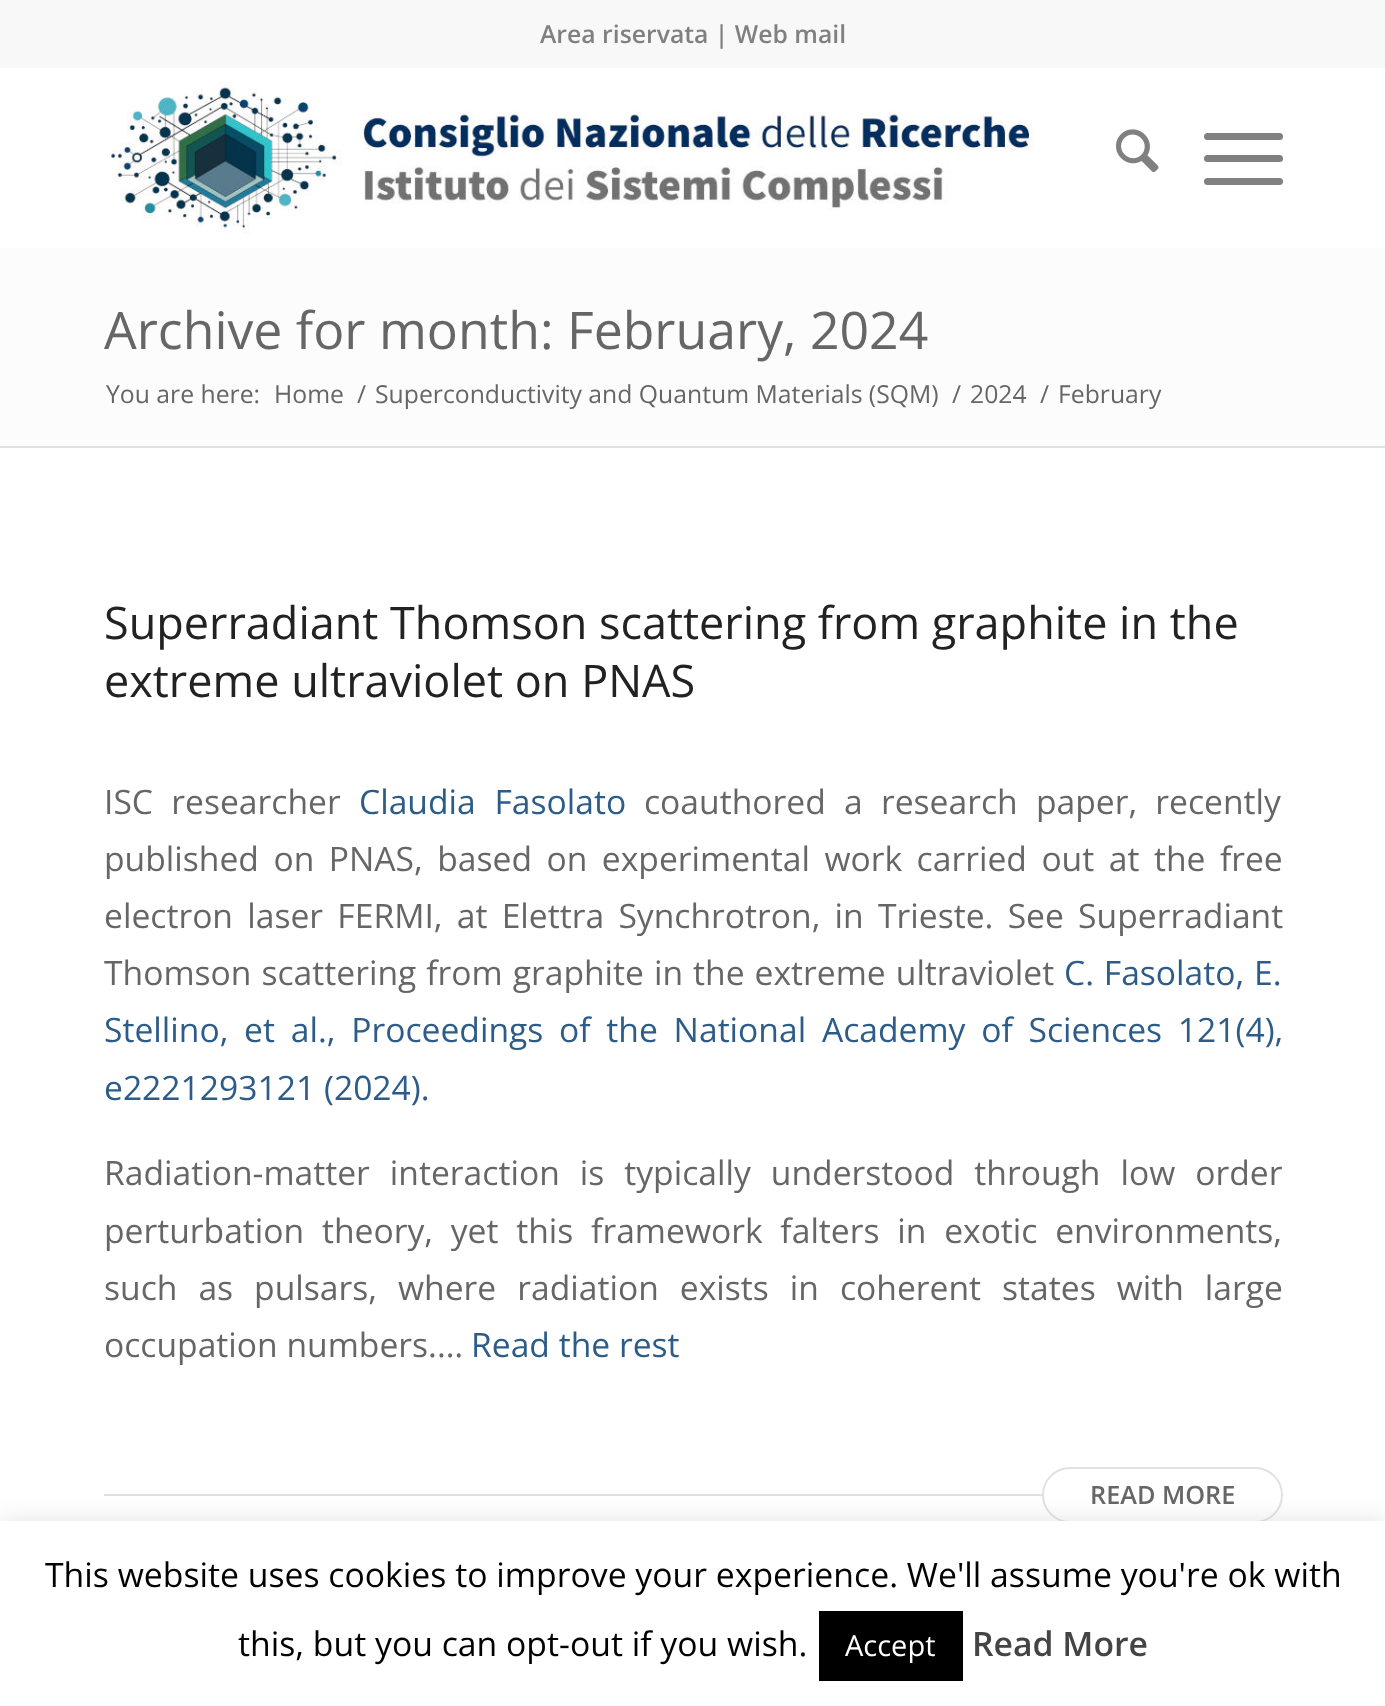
async function draw(canvas) {
  canvas.width = 1385;
  canvas.height = 1706;
  const ctx = canvas.getContext('2d');
  ctx.miterLimit = 4;
  ctx.fontKerning = 'normal';
  function label(s, x, y, font, color) {
    ctx.font = font;
    ctx.fillStyle = color;
    ctx.fillText(s, x, y);
  }
  function rect(x, y, w, h, color) {
    ctx.fillStyle = color;
    ctx.fillRect(x, y, w, h);
  }
  function roundedRect(x, y, w, h, r, color) {
    ctx.fillStyle = color;
    ctx.beginPath();
    ctx.roundRect(x, y, w, h, r);
    ctx.fill();
  }
  async function image(src, x, y, w, h) {
    const img = new Image();
    img.src = src;
    await img.decode();
    ctx.drawImage(img, x, y, w, h);
  }

  rect(0, 0, 1385, 1706, '#fff');
  rect(0, 0, 1385, 68, '#f8f8f8');
  label('Area riservata | Web mail', 540, 43, '600 24.75px Open Sans', '#808080');
  await image('assets/img1.png', 111, 82, 923, 152);
  await image('assets/img2.png', 1116, 129, 43, 44);
  roundedRect(1204, 155, 79, 7, 3.5, '#808080');
  roundedRect(1204, 133, 79, 7, 3.5, '#808080');
  roundedRect(1204, 178, 79, 7, 3.5, '#808080');
  rect(0, 248, 1385, 198, '#fcfcfc');
  label('Archive for month: February, 2024', 104, 349, '51.75px Open Sans', '#666');
  label('You are here:', 106, 403, '24.75px Open Sans', '#666');
  label('Home', 274, 403, '24.75px Open Sans', '#666');
  label('/', 357, 403, '24.75px Open Sans', '#666');
  label('Superconductivity and Quantum Materials (SQM)', 375, 403, '24.75px Open Sans', '#666');
  label('/', 952, 403, '24.75px Open Sans', '#666');
  label('2024', 970, 403, '24.75px Open Sans', '#666');
  label('/', 1040, 403, '24.75px Open Sans', '#666');
  label('February', 1058, 403, '24.75px Open Sans', '#666');
  rect(0, 446, 1385, 2, '#e1e1e1');
  label('Superradiant Thomson scattering from graphite in the', 104, 639, '45px Open Sans', '#222');
  label('extreme ultraviolet on PNAS', 104, 697, '45px Open Sans', '#222');
  ctx.wordSpacing = '9.5px';
  label('ISC researcher', 104, 814, '33.65px Open Sans', '#666');
  ctx.wordSpacing = '10px';
  label('Claudia Fasolato', 359, 814, '33.65px Open Sans', '#2d5c88');
  ctx.wordSpacing = '9.5px';
  label('coauthored a research paper, recently', 644, 814, '33.65px Open Sans', '#666');
  ctx.wordSpacing = '5.75px';
  label('published on PNAS, based on experimental work carried out at the free', 104, 871, '33.65px Open Sans', '#666');
  ctx.wordSpacing = '5.5px';
  label('electron laser FERMI, at Elettra Synchrotron, in Trieste. See Superradiant', 104, 928, '33.65px Open Sans', '#666');
  ctx.wordSpacing = '1.25px';
  label('Thomson scattering from graphite in the extreme ultraviolet', 104, 985, '33.65px Open Sans', '#666');
  ctx.wordSpacing = '1px';
  label('C. Fasolato, E.', 1064, 985, '33.65px Open Sans', '#2d5c88');
  ctx.wordSpacing = '7px';
  label('Stellino, et al., Proceedings of the National Academy of Sciences 121(4),', 104, 1042, '33.65px Open Sans', '#2d5c88');
  ctx.wordSpacing = '0px';
  label('e2221293121 (2024).', 104, 1100, '33.65px Open Sans', '#2d5c88');
  ctx.wordSpacing = '11.25px';
  label('Radiation-matter interaction is typically understood through low order', 104, 1185, '33.65px Open Sans', '#666');
  ctx.wordSpacing = '9px';
  label('perturbation theory, yet this framework falters in exotic environments,', 104, 1243, '33.65px Open Sans', '#666');
  ctx.wordSpacing = '12.25px';
  label('such as pulsars, where radiation exists in coherent states with large', 104, 1300, '33.65px Open Sans', '#666');
  ctx.wordSpacing = '0px';
  label('occupation numbers.…', 104, 1357, '33.65px Open Sans', '#666');
  label('Read the rest', 471, 1357, '33.65px Open Sans', '#2d5c88');
  rect(104, 1494, 1179, 2, '#e1e1e1');
  ctx.fillStyle = '#fff';
  ctx.beginPath();
  ctx.roundRect(1043, 1468, 239, 54, 27);
  ctx.fill();
  ctx.strokeStyle = '#e1e1e1';
  ctx.lineWidth = 2;
  ctx.stroke();
  label('READ MORE', 1090, 1504, '600 25.25px Open Sans', '#666');
  ctx.fillStyle = '#acabab4d';
  ctx.filter = 'blur(11px)';
  ctx.beginPath();
  ctx.rect(0, 1519, 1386, 187);
  ctx.fill();
  ctx.filter = 'none';
  rect(0, 1521, 1385, 185, '#fff');
  label('This website uses cookies to improve your experience. We\'ll assume you\'re ok with', 45, 1587, '33.75px Open Sans', '#000');
  label('this, but you can opt-out if you wish.', 238, 1656, '33.75px Open Sans', '#000');
  rect(819, 1611, 144, 70, '#000');
  label('Accept', 845, 1656, '29px Open Sans', '#fff');
  label('Read More', 972, 1656, '600 33.75px Open Sans', '#444');
}

draw(document.querySelector('canvas'));
